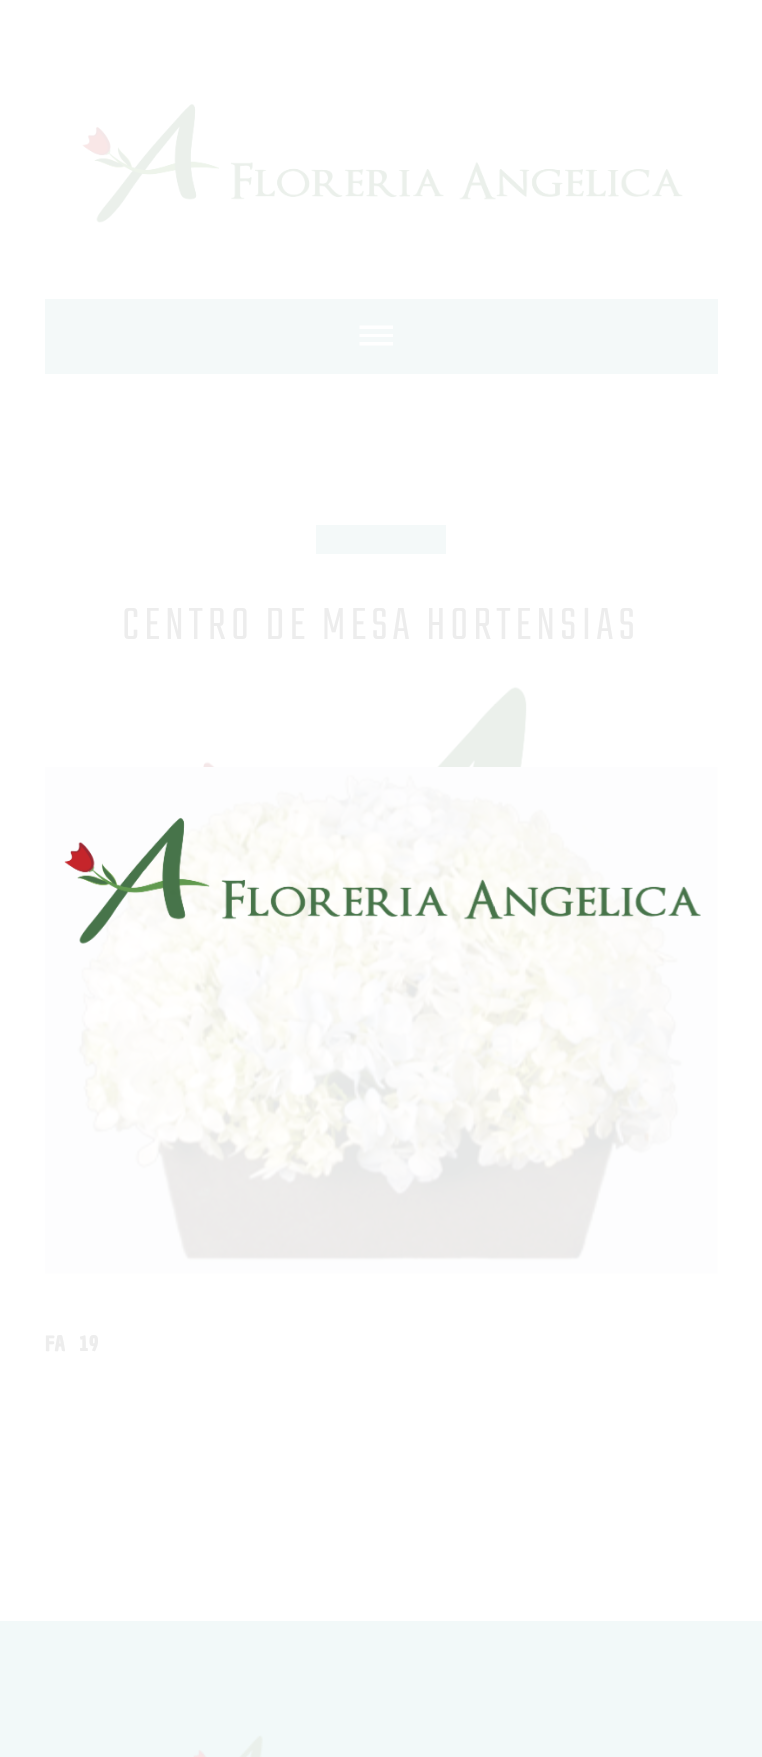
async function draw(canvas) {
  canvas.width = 762;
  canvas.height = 1757;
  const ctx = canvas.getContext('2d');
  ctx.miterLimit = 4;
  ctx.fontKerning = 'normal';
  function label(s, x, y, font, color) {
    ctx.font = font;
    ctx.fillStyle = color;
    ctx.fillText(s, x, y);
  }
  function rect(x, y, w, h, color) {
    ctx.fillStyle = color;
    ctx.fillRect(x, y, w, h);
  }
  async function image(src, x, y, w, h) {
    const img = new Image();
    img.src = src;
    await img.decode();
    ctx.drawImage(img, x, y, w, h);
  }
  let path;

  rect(0, 0, 762, 1757, '#fff');
  await image('assets/img1.png', 203, 686, 324, 81);
  await image('assets/img2.png', 82, 103, 601, 120);
  rect(45, 299, 673, 75, '#f4f9f9');
  ctx.fillStyle = '#fff';
  path = new Path2D('M359.5 325.5H393V329H359.5ZM359.5 334H393V337H359.5ZM359.5 342H393V345.5H359.5Z');
  ctx.fill(path);
  rect(316, 525, 130, 29, '#f4f9f9');
  ctx.letterSpacing = '5px';
  label('CENTRO DE MESA HORTENSIAS', 122, 639, '300 50px Teko', '#ededed');
  await image('assets/img3.png', 45, 767, 673, 507);
  ctx.letterSpacing = '1.25px';
  label('FA  19', 45, 1351, 'bold 20px Chau Philomene One', '#ededed');
  rect(0, 1621, 762, 136, '#f2f9f9');
  await image('assets/img4.png', 193, 1735, 70, 22);
  await image('assets/img5.png', 64, 817, 637, 127);
}

draw(document.querySelector('canvas'));
